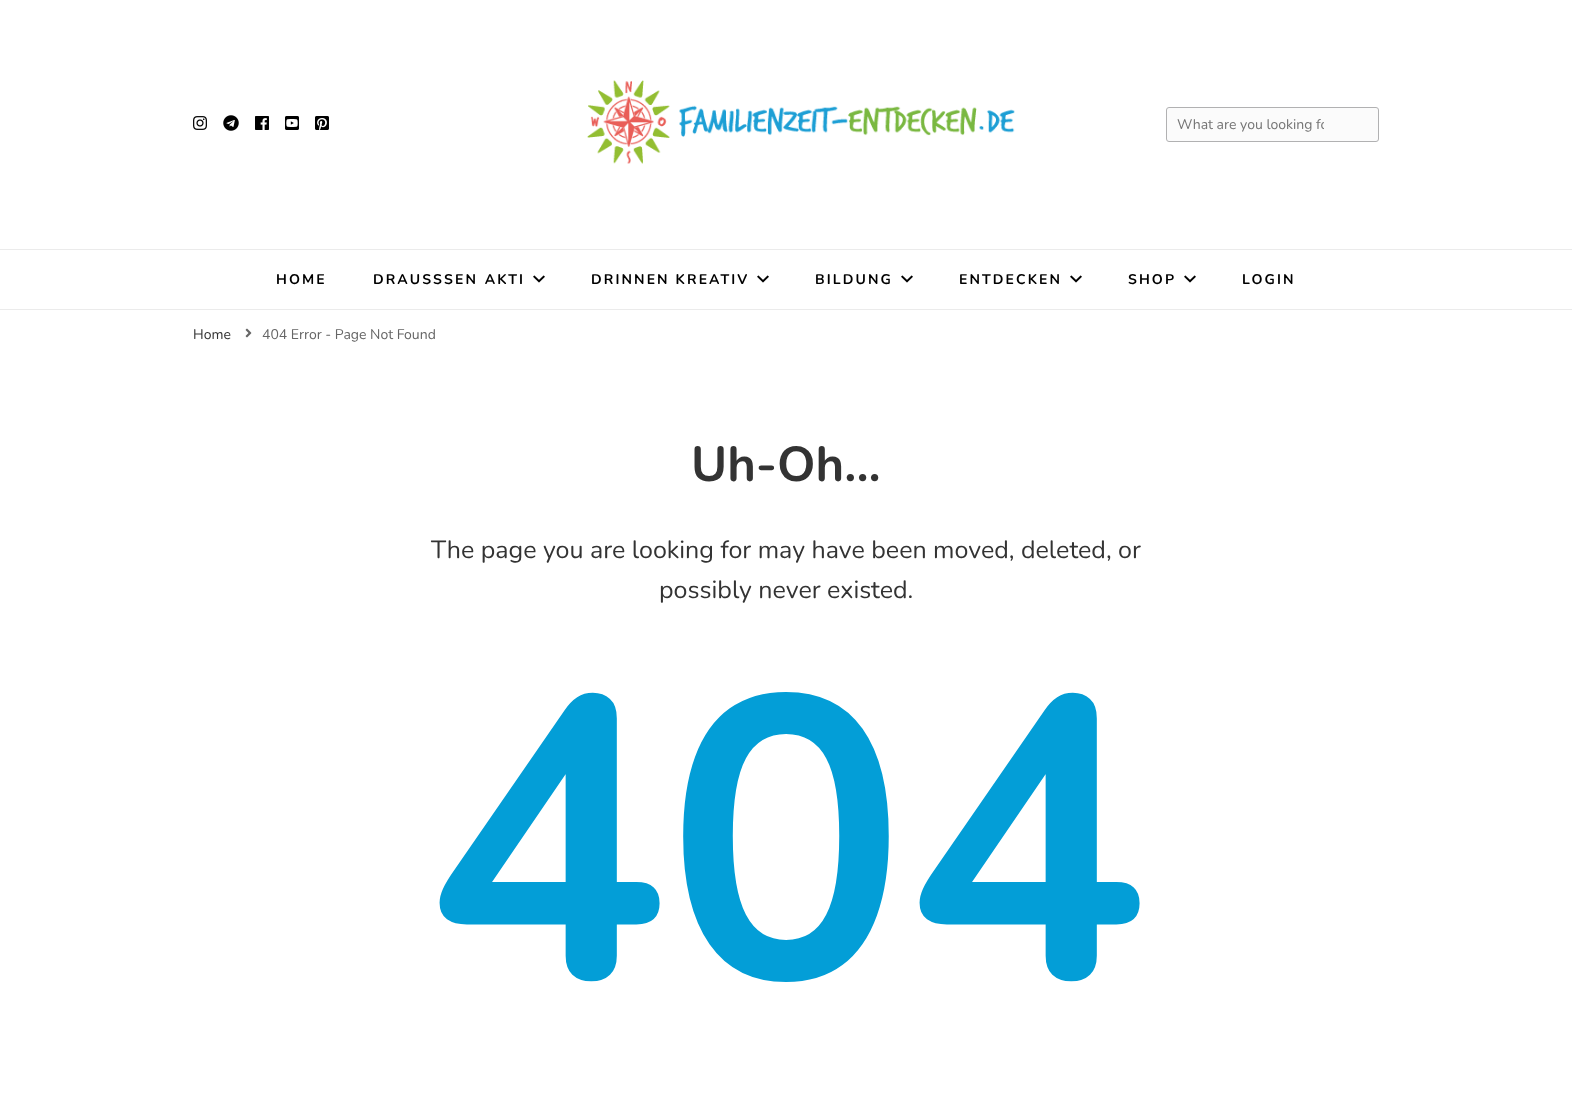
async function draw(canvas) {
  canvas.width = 1572;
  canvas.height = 1100;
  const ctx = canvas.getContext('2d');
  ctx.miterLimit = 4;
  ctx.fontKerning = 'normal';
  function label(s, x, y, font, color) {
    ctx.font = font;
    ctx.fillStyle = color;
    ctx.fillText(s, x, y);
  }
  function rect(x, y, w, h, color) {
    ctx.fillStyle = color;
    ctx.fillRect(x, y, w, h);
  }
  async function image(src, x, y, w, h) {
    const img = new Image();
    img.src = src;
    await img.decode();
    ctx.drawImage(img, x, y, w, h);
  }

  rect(0, 0, 1572, 1100, '#fff');
  rect(0, 309, 1572, 1, '#ebebeb');
  await image('assets/img1.png', 193, 116, 14, 14);
  await image('assets/img2.png', 223, 115, 16, 16);
  await image('assets/img3.png', 255, 116, 14, 14);
  await image('assets/img4.png', 285, 116, 14, 14);
  await image('assets/img5.png', 315, 116, 14, 14);
  await image('assets/img6.png', 587, 80, 428, 84);
  ctx.fillStyle = '#fbfbfb';
  ctx.beginPath();
  ctx.roundRect(1166.5, 107.5, 212, 34, 2.5);
  ctx.fill();
  ctx.strokeStyle = '#b1b1b2';
  ctx.stroke();
  ctx.save();
  ctx.beginPath();
  ctx.rect(1177, 115, 147, 19);
  ctx.clip();
  label('What are you looking fo', 1177, 129, '14px Nunito', '#757575');
  ctx.restore();
  rect(0, 249, 1572, 1, '#ebebeb');
  ctx.letterSpacing = '2.1px';
  label('HOME', 276, 284, 'bold 14px Nunito', '#000');
  label('DRAUSS', 373, 284, 'bold 14px Nunito', '#000');
  ctx.wordSpacing = '1px';
  label('SEN AKTI', 444, 284, 'bold 14px Nunito', '#000');
  await image('assets/img7.png', 533, 275, 12, 8);
  ctx.wordSpacing = '0px';
  label('DRINNEN KREATIV', 591, 284, 'bold 14px Nunito', '#000');
  await image('assets/img7.png', 757, 275, 12, 8);
  label('BILDUNG', 815, 284, 'bold 14px Nunito', '#000');
  await image('assets/img7.png', 901, 275, 12, 8);
  label('ENTDECKEN', 959, 284, 'bold 14px Nunito', '#000');
  await image('assets/img7.png', 1070, 275, 12, 8);
  label('SHOP', 1128, 284, 'bold 14px Nunito', '#000');
  await image('assets/img7.png', 1184, 275, 12, 8);
  label('LOGIN', 1242, 284, 'bold 14px Nunito', '#000');
  ctx.letterSpacing = '0px';
  label('Home', 193, 339, '14px Nunito', '#333');
  await image('assets/img8.png', 245, 328, 7, 10);
  label('404 Error - Page Not Found', 262, 339, '14px Nunito', '#666');
  label('Uh-Oh...', 691, 481, 'bold 49px Nunito', '#333');
  label('The page you are looking for may have been moved, deleted, or', 431, 558, '25px Nunito', '#333');
  label('possibly never existed.', 659, 598, '25px Nunito', '#333');
  label('404', 426, 978, 'bold 400px Nunito', '#039ed7');
}

draw(document.querySelector('canvas'));
